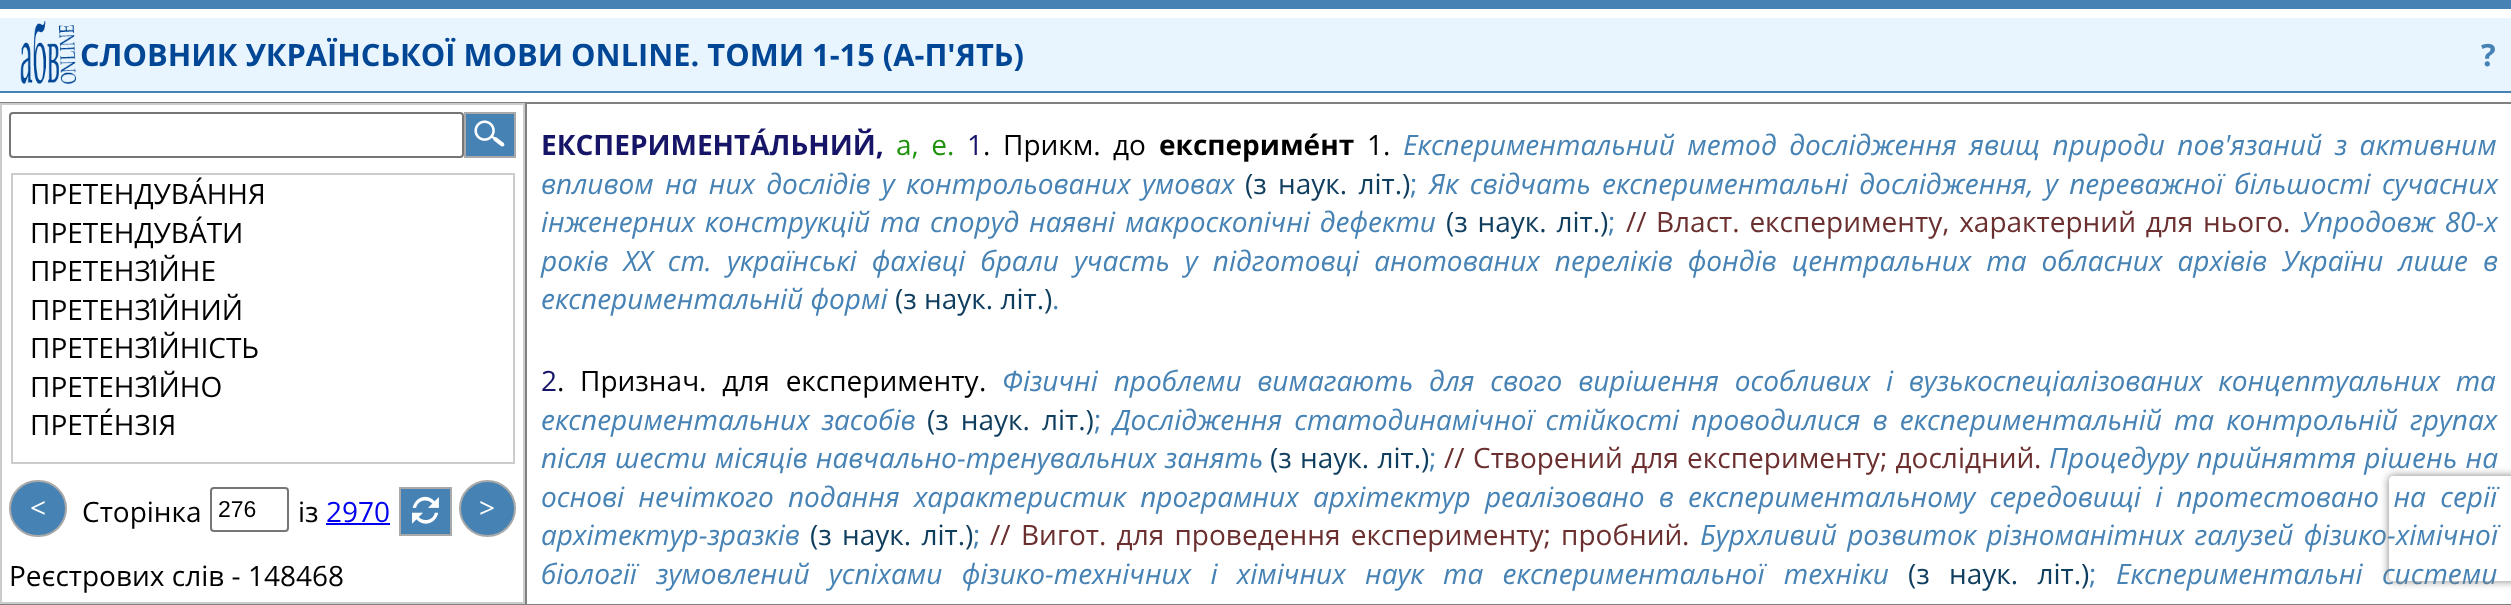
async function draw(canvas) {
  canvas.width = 2511;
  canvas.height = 605;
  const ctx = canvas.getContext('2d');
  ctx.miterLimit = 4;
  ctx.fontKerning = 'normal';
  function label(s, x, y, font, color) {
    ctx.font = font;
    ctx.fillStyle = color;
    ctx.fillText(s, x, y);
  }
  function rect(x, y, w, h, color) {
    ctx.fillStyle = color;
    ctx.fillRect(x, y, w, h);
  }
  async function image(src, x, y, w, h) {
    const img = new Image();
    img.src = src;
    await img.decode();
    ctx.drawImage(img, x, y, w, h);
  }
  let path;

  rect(0, 0, 2511, 605, '#fff');
  rect(0, 0, 2511, 9, '#4682b4');
  rect(0, 18, 2511, 73, '#e8f5fe');
  rect(0, 91, 2511, 2, '#4682b4');
  await image('assets/img1.png', 20, 20, 56, 64);
  label('СЛОВНИК УКРАЇНСЬКОЇ МОВИ ONLINE. ТОМИ 1-15 (А-П\'ЯТЬ)', 80, 66, 'bold 30.8px Open Sans', '#024796');
  label('?', 2481, 66, 'bold 30.8px Open Sans', '#4682b4');
  rect(0, 102, 2511, 2, '#808080');
  rect(0, 604, 2511, 1, '#808080');
  ctx.strokeStyle = '#ccc';
  ctx.lineWidth = 2;
  ctx.strokeRect(1, 104, 523, 499);
  ctx.beginPath();
  ctx.roundRect(10, 113, 453, 44, 3);
  ctx.strokeStyle = '#767676';
  ctx.stroke();
  ctx.fillStyle = '#4682b4';
  ctx.beginPath();
  ctx.rect(465, 113, 50, 44);
  ctx.fill();
  ctx.strokeStyle = '#a9a9a9';
  ctx.stroke();
  await image('assets/img2.png', 474, 120, 31, 27);
  ctx.strokeStyle = '#ccc';
  ctx.strokeRect(12, 174, 502, 289);
  label('ПРЕТЕНДУВА́ННЯ', 30, 204, '28px Open Sans', '#000');
  label('ПРЕТЕНДУВА́ТИ', 30, 243, '28px Open Sans', '#000');
  label('ПРЕТЕНЗІ́ЙНЕ', 30, 281, '28px Open Sans', '#000');
  label('ПРЕТЕНЗІ́ЙНИЙ', 30, 320, '28px Open Sans', '#000');
  label('ПРЕТЕНЗІ́ЙНІСТЬ', 30, 358, '28px Open Sans', '#000');
  label('ПРЕТЕНЗІ́ЙНО', 30, 397, '28px Open Sans', '#000');
  label('ПРЕТЕ́НЗІЯ', 30, 435, '28px Open Sans', '#000');
  ctx.fillStyle = '#4682b4';
  ctx.beginPath();
  ctx.roundRect(10, 481, 56, 55, 27.5);
  ctx.fill();
  ctx.strokeStyle = '#a9a9a9';
  ctx.stroke();
  label('<', 30, 518, '28px Open Sans', '#fff');
  label('Сторінка', 82, 522, '28px Open Sans', '#000');
  ctx.beginPath();
  ctx.roundRect(211, 488, 77, 43, 3);
  ctx.strokeStyle = '#767676';
  ctx.stroke();
  label('276', 218, 517, '23px Liberation Sans', '#000');
  label('із', 298, 522, '28px Open Sans', '#000');
  label('2970', 326, 522, '28px Open Sans', '#00e');
  rect(326, 523, 64, 2, '#00e');
  ctx.fillStyle = '#4682b4';
  ctx.beginPath();
  ctx.rect(400, 488, 51, 47);
  ctx.fill();
  ctx.strokeStyle = '#a9a9a9';
  ctx.stroke();
  await image('assets/img3.png', 412, 496, 27, 28);
  ctx.beginPath();
  ctx.arc(487.5, 508.5, 27.5, 0, 2 * Math.PI);
  ctx.fill();
  ctx.stroke();
  label('>', 479, 518, '28px Open Sans', '#fff');
  label('Реєстрових слів - 148468', 9, 586, '28px Open Sans', '#000');
  rect(525, 103, 2, 501, '#808080');
  label('ЕКСПЕРИМЕНТА́ЛЬНИЙ,', 541, 155, 'bold 28px Open Sans', '#171567');
  ctx.wordSpacing = '5.25px';
  label('а, е.', 896, 155, '28px Open Sans', '#1f930c');
  ctx.wordSpacing = '0px';
  label('1', 967, 155, '28px Open Sans', '#171567');
  label('.', 983, 155, '28px Open Sans', '#000');
  ctx.wordSpacing = '5px';
  label('Прикм. до', 1003, 155, '28px Open Sans', '#000');
  ctx.wordSpacing = '0px';
  label('експериме́нт', 1159, 155, 'bold 28px Open Sans', '#000');
  label('1.', 1367, 155, '28px Open Sans', '#000');
  ctx.wordSpacing = '5.25px';
  label('Експериментальний метод дослідження явищ природи пов\'язаний з активним', 1403, 155, 'italic 28px Open Sans', '#4682b4');
  ctx.wordSpacing = '4px';
  label('впливом на них дослідів у контрольованих умовах', 541, 194, 'italic 28px Open Sans', '#4682b4');
  label('(з наук. літ.)', 1245, 194, '28px Open Sans', '#0f3d5e');
  ctx.wordSpacing = '0px';
  label(';', 1410, 194, '28px Open Sans', '#4682b4');
  ctx.wordSpacing = '4px';
  label('Як свідчать експериментальні дослідження, у переважної більшості сучасних', 1429, 194, 'italic 28px Open Sans', '#4682b4');
  ctx.wordSpacing = '2.5px';
  label('інженерних конструкцій та споруд наявні макроскопічні дефекти', 541, 232, 'italic 28px Open Sans', '#4682b4');
  label('(з наук. літ.)', 1446, 232, '28px Open Sans', '#0f3d5e');
  ctx.wordSpacing = '0px';
  label(';', 1608, 232, '28px Open Sans', '#4682b4');
  label('//', 1626, 232, '28px Open Sans', '#6b2f2f');
  ctx.wordSpacing = '2.5px';
  label('Власт. експерименту, характерний для нього', 1656, 232, '28px Open Sans', '#6b2f2f');
  ctx.wordSpacing = '0px';
  label('.', 2283, 232, '28px Open Sans', '#6b2f2f');
  ctx.wordSpacing = '2.5px';
  label('Упродовж 80-х', 2301, 232, 'italic 28px Open Sans', '#4682b4');
  ctx.wordSpacing = '7.75px';
  label('років XX ст. українські фахівці брали участь у підготовці анотованих переліків фондів центральних та обласних архівів України лише в', 541, 271, 'italic 28px Open Sans', '#4682b4');
  ctx.wordSpacing = '0px';
  label('експериментальній формі', 541, 309, 'italic 28px Open Sans', '#4682b4');
  label('(з наук. літ.)', 895, 309, '28px Open Sans', '#0f3d5e');
  label('.', 1052, 309, '28px Open Sans', '#4682b4');
  label('2', 541, 391, '28px Open Sans', '#171567');
  label('.', 557, 391, '28px Open Sans', '#000');
  ctx.wordSpacing = '8.5px';
  label('Признач. для експерименту', 580, 391, '28px Open Sans', '#000');
  ctx.wordSpacing = '0px';
  label('.', 979, 391, '28px Open Sans', '#000');
  ctx.wordSpacing = '8.5px';
  label('Фізичні проблеми вимагають для свого вирішення особливих і вузькоспеціалізованих концептуальних та', 1002, 391, 'italic 28px Open Sans', '#4682b4');
  ctx.wordSpacing = '4.75px';
  label('експериментальних засобів', 541, 430, 'italic 28px Open Sans', '#4682b4');
  label('(з наук. літ.)', 927, 430, '28px Open Sans', '#0f3d5e');
  ctx.wordSpacing = '0px';
  label(';', 1094, 430, '28px Open Sans', '#4682b4');
  ctx.wordSpacing = '4.75px';
  label('Дослідження статодинамічної стійкості проводилися в експериментальній та контрольній групах', 1113, 430, 'italic 28px Open Sans', '#4682b4');
  ctx.wordSpacing = '1px';
  label('після шести місяців навчально-тренувальних занять', 541, 468, 'italic 28px Open Sans', '#4682b4');
  label('(з наук. літ.)', 1270, 468, '28px Open Sans', '#0f3d5e');
  ctx.wordSpacing = '0px';
  label(';', 1429, 468, '28px Open Sans', '#4682b4');
  label('//', 1444, 468, '28px Open Sans', '#6b2f2f');
  ctx.wordSpacing = '1px';
  label('Створений для експерименту; дослідний', 1473, 468, '28px Open Sans', '#6b2f2f');
  ctx.wordSpacing = '0px';
  label('.', 2034, 468, '28px Open Sans', '#6b2f2f');
  ctx.wordSpacing = '1px';
  label('Процедуру прийняття рішень на', 2049, 468, 'italic 28px Open Sans', '#4682b4');
  ctx.wordSpacing = '7px';
  label('основі нечіткого подання характеристик програмних архітектур реалізовано в експериментальному середовищі і протестовано на серії', 541, 507, 'italic 28px Open Sans', '#4682b4');
  ctx.wordSpacing = '0px';
  label('архітектур-зразків', 541, 545, 'italic 28px Open Sans', '#4682b4');
  ctx.wordSpacing = '3px';
  label('(з наук. літ.)', 810, 545, '28px Open Sans', '#0f3d5e');
  ctx.wordSpacing = '0px';
  label(';', 973, 545, '28px Open Sans', '#4682b4');
  label('//', 990, 545, '28px Open Sans', '#6b2f2f');
  ctx.wordSpacing = '3px';
  label('Вигот. для проведення експерименту; пробний', 1021, 545, '28px Open Sans', '#6b2f2f');
  ctx.wordSpacing = '0px';
  label('.', 1682, 545, '28px Open Sans', '#6b2f2f');
  ctx.wordSpacing = '3px';
  label('Бурхливий розвиток різноманітних галузей фізико-хімічної', 1700, 545, 'italic 28px Open Sans', '#4682b4');
  ctx.wordSpacing = '12px';
  label('біології зумовлений успіхами фізико-технічних і хімічних наук та експериментальної техніки', 541, 584, 'italic 28px Open Sans', '#4682b4');
  label('(з наук. літ.)', 1908, 584, '28px Open Sans', '#0f3d5e');
  ctx.wordSpacing = '0px';
  label(';', 2089, 584, '28px Open Sans', '#4682b4');
  ctx.wordSpacing = '12px';
  label('Експериментальні системи', 2116, 584, 'italic 28px Open Sans', '#4682b4');
  ctx.save();
  path = new Path2D('M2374 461H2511V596H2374ZM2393 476H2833C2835 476 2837 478 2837 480V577C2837 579 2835 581 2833 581H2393C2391 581 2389 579 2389 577V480C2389 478 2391 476 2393 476Z');
  ctx.clip(path, 'evenodd');
  ctx.fillStyle = '#808080';
  ctx.filter = 'blur(4.5px)';
  ctx.beginPath();
  ctx.roundRect(2389, 476, 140, 105, 4);
  ctx.fill();
  ctx.filter = 'none';
  ctx.restore();
}

draw(document.querySelector('canvas'));
